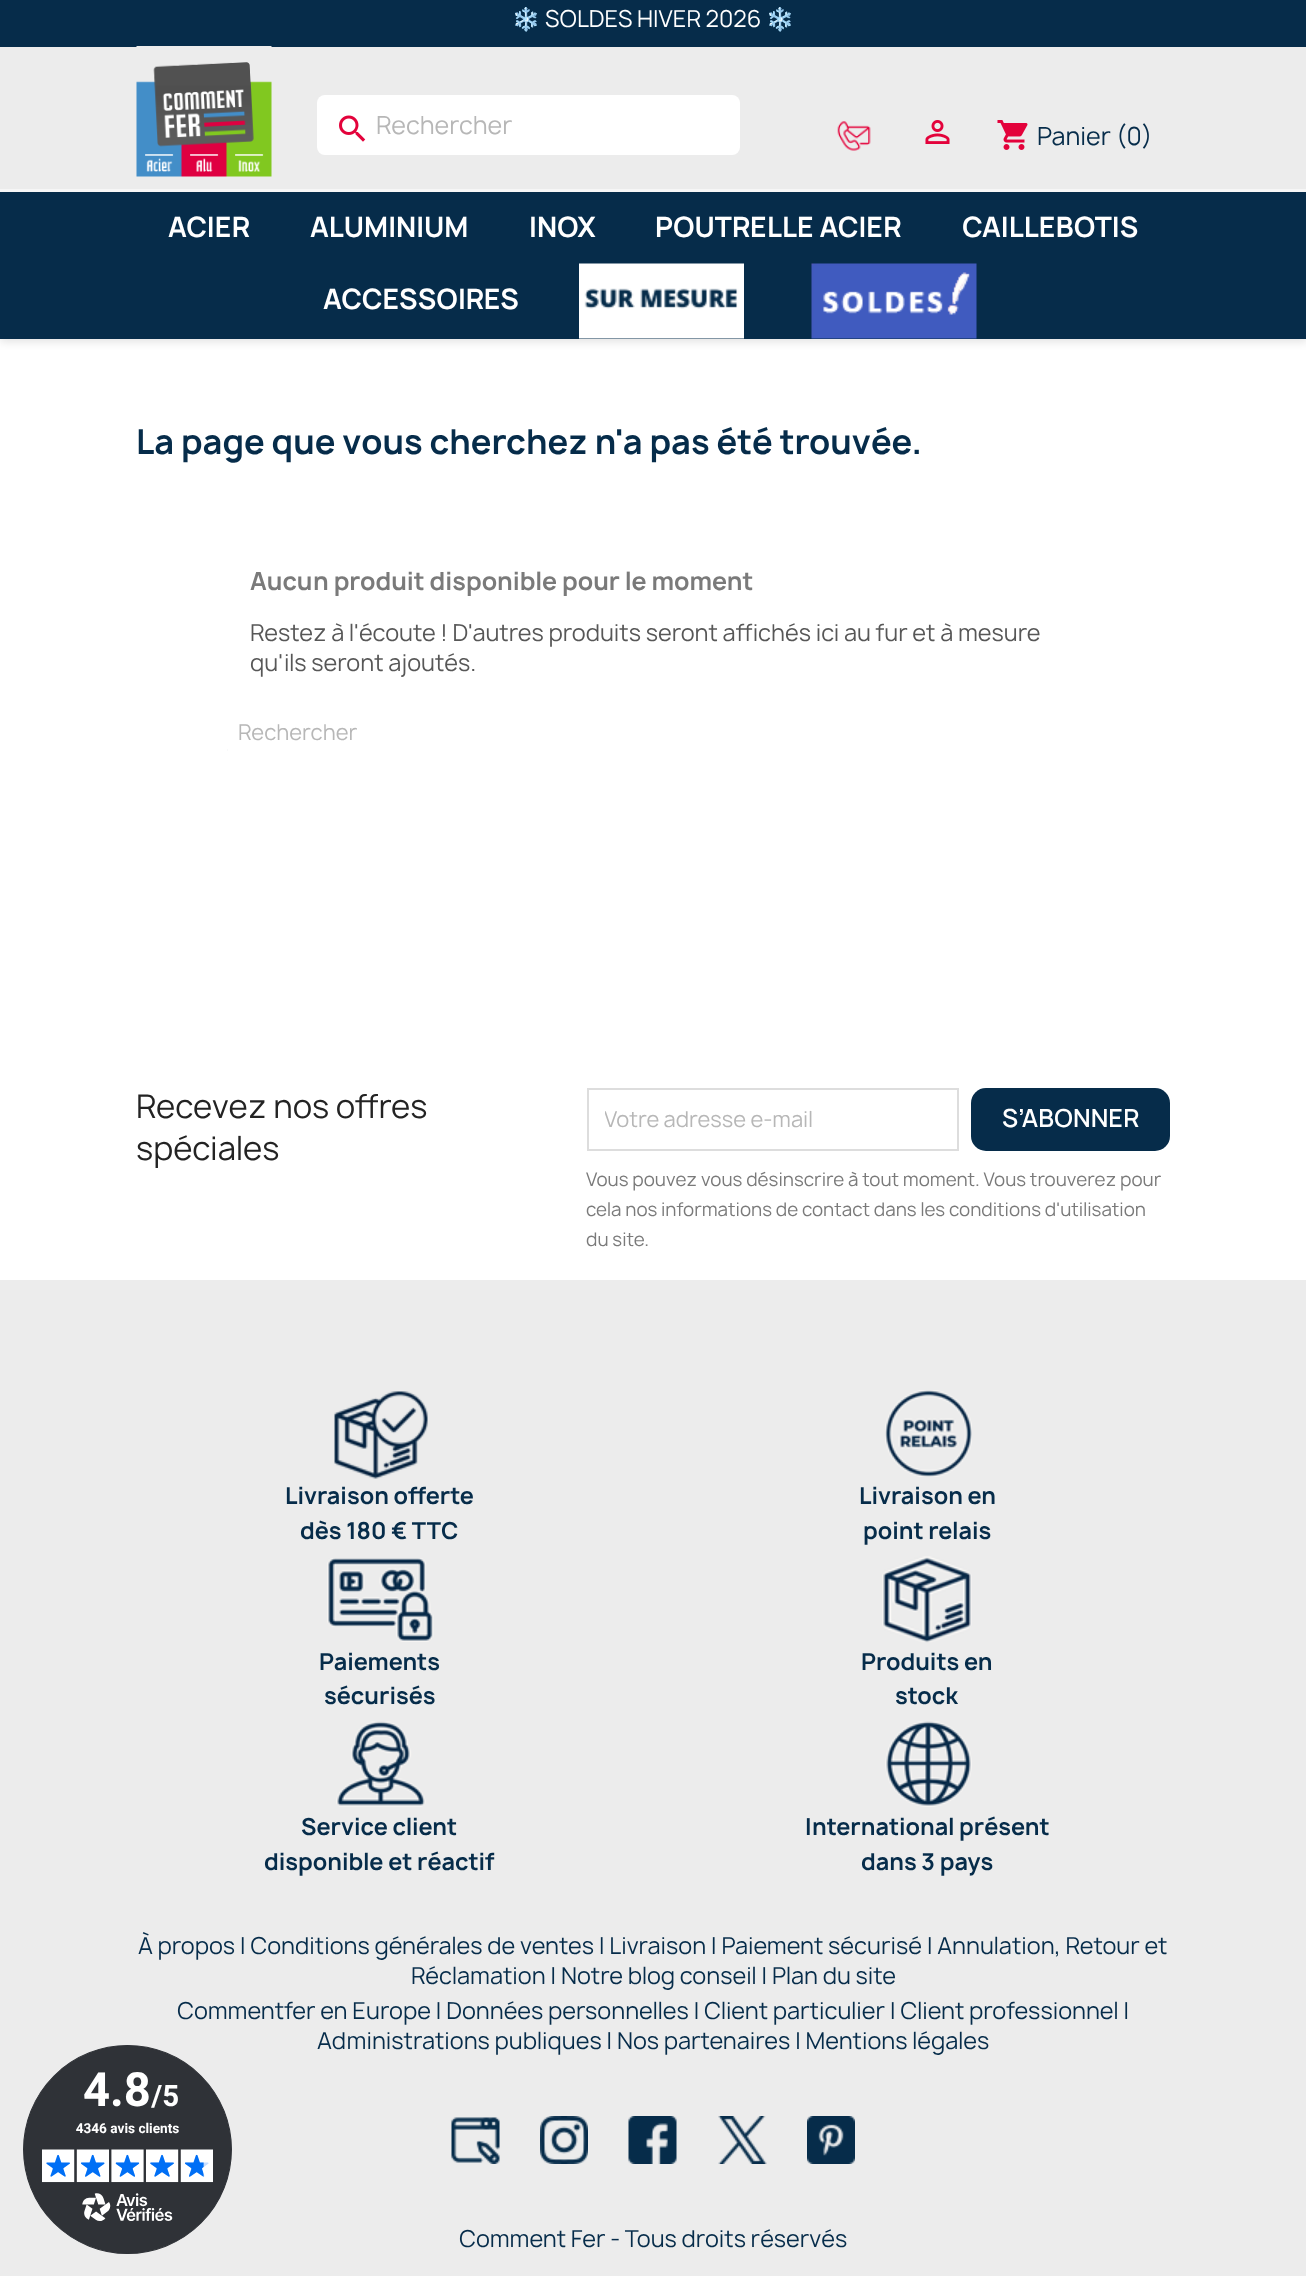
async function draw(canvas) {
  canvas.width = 1306;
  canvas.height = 2276;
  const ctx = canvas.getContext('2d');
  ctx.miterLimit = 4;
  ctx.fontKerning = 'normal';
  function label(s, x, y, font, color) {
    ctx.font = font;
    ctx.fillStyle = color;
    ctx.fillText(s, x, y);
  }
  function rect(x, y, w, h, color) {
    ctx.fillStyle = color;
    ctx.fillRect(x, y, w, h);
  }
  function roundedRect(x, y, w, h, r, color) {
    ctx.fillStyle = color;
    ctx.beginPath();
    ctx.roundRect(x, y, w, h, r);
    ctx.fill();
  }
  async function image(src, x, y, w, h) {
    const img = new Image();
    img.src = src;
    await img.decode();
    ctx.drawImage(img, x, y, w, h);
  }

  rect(0, 0, 1306, 2276, '#fff');
  rect(0, 1280, 1306, 996, '#ececec');
  await image('assets/img1.png', 23, 2045, 209, 209);
  ctx.fillStyle = '#0000001c';
  ctx.filter = 'blur(4px)';
  ctx.beginPath();
  ctx.rect(0, -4, 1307, 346);
  ctx.fill();
  ctx.filter = 'none';
  rect(0, 0, 1306, 339, '#062c4a');
  label('❄️', 512, 27, '22.5px Noto Color Emoji', '#fff');
  label('SOLDES HIVER 2026', 545, 27, '22.5px Manrope', '#fff');
  label('❄️', 766, 27, '22.5px Noto Color Emoji', '#fff');
  rect(0, 47, 1306, 142, '#ececec');
  rect(0, 189, 1306, 3, '#f6f6f6');
  await image('assets/img2.png', 136, 46, 136, 131);
  roundedRect(317, 95, 423, 60, 8, '#fff');
  await image('assets/img3.png', 339, 115, 27, 27);
  label('Rechercher', 376, 134, '24px Manrope', '#b7b7b7');
  await image('assets/img4.png', 837, 121, 34, 30);
  await image('assets/img5.png', 925, 120, 25, 24);
  await image('assets/img6.png', 997, 120, 31, 30);
  label('Panier (0)', 1037, 145, '24px Manrope', '#062c4a');
  label('ACIER', 168, 237, 'bold 27px Manrope', '#fff');
  label('ALUMINIUM', 310, 237, 'bold 27px Manrope', '#fff');
  label('INOX', 529, 237, 'bold 27px Manrope', '#fff');
  label('POUTRELLE ACIER', 655, 237, 'bold 27px Manrope', '#fff');
  label('CAILLEBOTIS', 962, 237, 'bold 27px Manrope', '#fff');
  label('ACCESSOIRES', 323, 309, 'bold 27px Manrope', '#fff');
  await image('assets/img7.png', 579, 263, 165, 76);
  await image('assets/img8.png', 811, 263, 166, 76);
  label('La page que vous cherchez n\'a pas été trouvée.', 136, 454, 'bold 33px Manrope', '#062c4a');
  label('Aucun produit disponible pour le moment', 250, 590, 'bold 24px Manrope', '#7a7a7a');
  label('Restez à l\'écoute ! D\'autres produits seront affichés ici au fur et à mesure', 250, 641, '22.5px Manrope', '#575757');
  label('qu\'ils seront ajoutés.', 250, 671, '22.5px Manrope', '#575757');
  label('Rechercher', 238, 740, '21px Manrope', '#b7b7b7');
  rect(227, 749, 1, 2, '#f8f9fa');
  label('Recevez nos offres', 136, 1118, '31.5px Manrope', '#232323');
  label('spéciales', 136, 1160, '31.5px Manrope', '#232323');
  ctx.strokeStyle = '#ddd';
  ctx.lineWidth = 2;
  ctx.strokeRect(588, 1089, 370, 61);
  ctx.save();
  ctx.beginPath();
  ctx.rect(605, 1101, 336, 35);
  ctx.clip();
  label('Votre adresse e-mail', 604, 1127, '21px Manrope', '#b7b7b7');
  ctx.restore();
  roundedRect(971, 1088, 199, 63, 15, '#062c4a');
  label('S’ABONNER', 1002, 1127, '600 24px Manrope', '#fff');
  label('Vous pouvez vous désinscrire à tout moment. Vous trouverez pour', 586, 1186, '18px Manrope', '#7a7a7a');
  label('cela nos informations de contact dans les conditions d\'utilisation', 586, 1216, '18px Manrope', '#7a7a7a');
  label('du site.', 586, 1246, '18px Manrope', '#7a7a7a');
  await image('assets/img9.png', 334, 1391, 94, 88);
  label('Livraison offerte', 285, 1504, 'bold 22.5px Manrope', '#062c4a');
  label('dès 180 € TTC', 300, 1539, 'bold 22.5px Manrope', '#062c4a');
  await image('assets/img10.png', 885, 1390, 87, 87);
  label('Livraison en', 859, 1504, 'bold 22.5px Manrope', '#062c4a');
  label('point relais', 863, 1539, 'bold 22.5px Manrope', '#062c4a');
  await image('assets/img11.png', 327, 1558, 107, 84);
  label('Paiements', 319, 1670, 'bold 22.5px Manrope', '#062c4a');
  label('sécurisés', 324, 1704, 'bold 22.5px Manrope', '#062c4a');
  await image('assets/img12.png', 882, 1556, 90, 87);
  label('Produits en', 861, 1670, 'bold 22.5px Manrope', '#062c4a');
  label('stock', 895, 1704, 'bold 22.5px Manrope', '#062c4a');
  await image('assets/img13.png', 336, 1721, 90, 86);
  label('Service client', 301, 1835, 'bold 22.5px Manrope', '#062c4a');
  label('disponible et réactif', 264, 1870, 'bold 22.5px Manrope', '#062c4a');
  await image('assets/img14.png', 885, 1721, 87, 86);
  label('International présent', 805, 1835, 'bold 22.5px Manrope', '#062c4a');
  label('dans 3 pays', 861, 1870, 'bold 22.5px Manrope', '#062c4a');
  label('À propos | Conditions générales de ventes | Livraison | Paiement sécurisé | Annulation, Retour et', 138, 1954, '22.5px Manrope', '#062c4a');
  label('Réclamation | Notre blog conseil | Plan du site', 411, 1984, '22.5px Manrope', '#062c4a');
  label('Commentfer en Europe | Données personnelles | Client particulier | Client professionnel |', 177, 2019, '22.5px Manrope', '#062c4a');
  label('Administrations publiques | Nos partenaires | Mentions légales', 317, 2049, '22.5px Manrope', '#062c4a');
  await image('assets/img15.png', 451, 2117, 49, 47);
  await image('assets/img16.png', 540, 2116, 48, 48);
  await image('assets/img17.png', 628, 2116, 49, 48);
  await image('assets/img18.png', 718, 2116, 49, 48);
  await image('assets/img19.png', 807, 2116, 48, 48);
  label('Comment Fer - Tous droits réservés', 459, 2247, '22.5px Manrope', '#062c4a');
}

draw(document.querySelector('canvas'));
